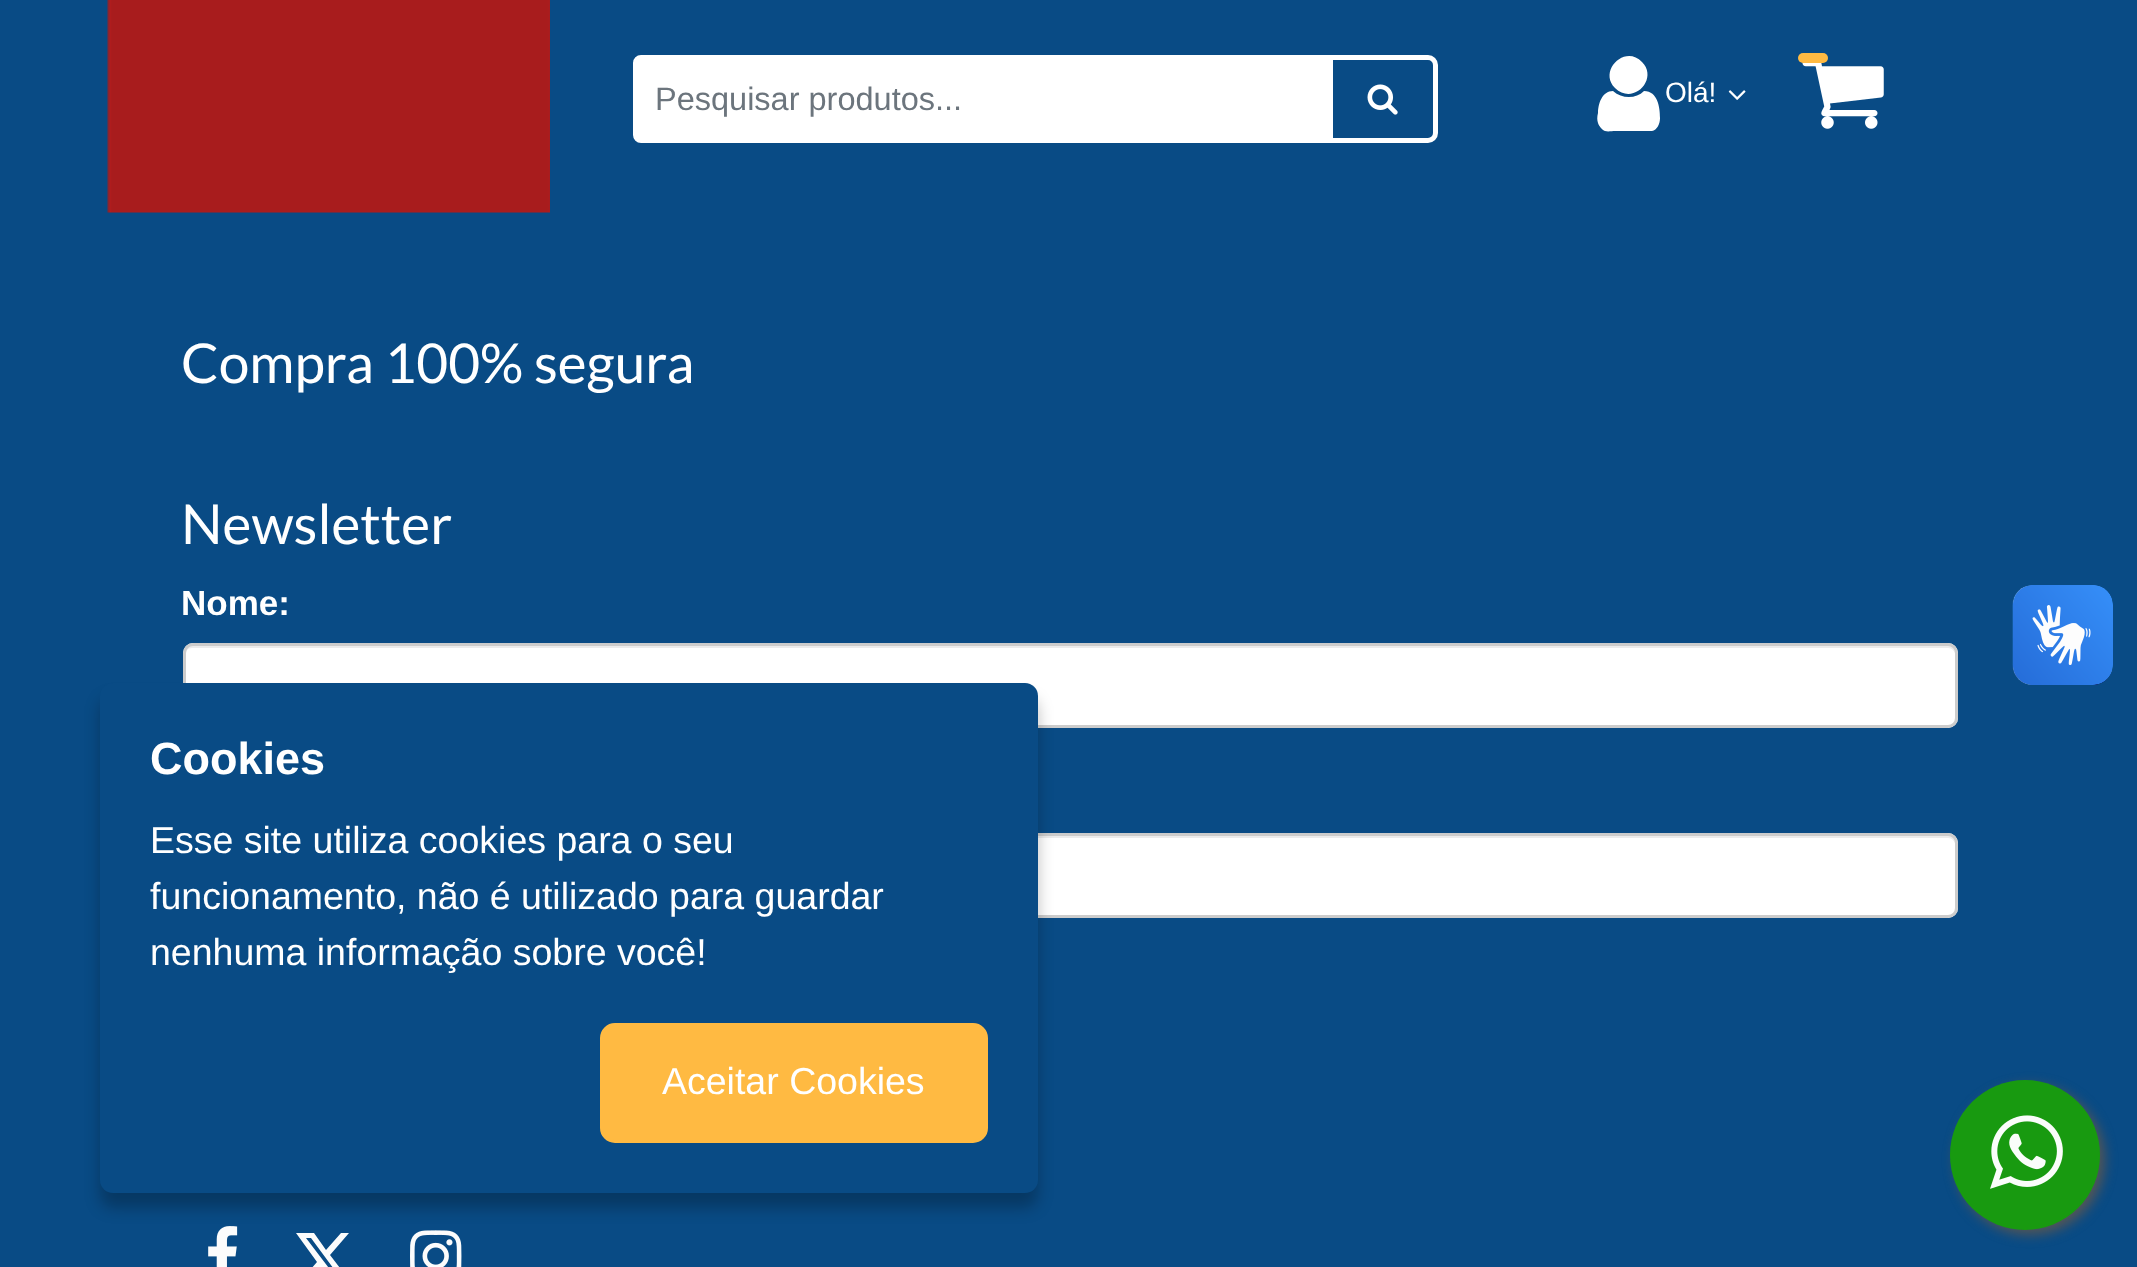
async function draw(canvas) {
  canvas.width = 2137;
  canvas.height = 1267;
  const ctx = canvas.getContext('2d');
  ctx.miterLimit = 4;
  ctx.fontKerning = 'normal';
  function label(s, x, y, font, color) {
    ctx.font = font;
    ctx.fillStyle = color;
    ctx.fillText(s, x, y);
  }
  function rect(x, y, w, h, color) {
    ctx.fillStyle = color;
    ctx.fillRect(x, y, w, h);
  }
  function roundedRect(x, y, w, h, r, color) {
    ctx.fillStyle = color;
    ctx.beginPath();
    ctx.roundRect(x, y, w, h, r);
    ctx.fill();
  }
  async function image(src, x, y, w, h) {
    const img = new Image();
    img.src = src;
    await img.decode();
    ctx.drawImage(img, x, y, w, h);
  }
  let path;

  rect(0, 0, 2137, 1267, '#094b85');
  await image('assets/img1.png', 107, 0, 443, 213);
  ctx.beginPath();
  ctx.roundRect(1330.5, 57.5, 105, 83, [0, 7.5, 7.5, 0]);
  ctx.strokeStyle = '#fff';
  ctx.lineWidth = 5;
  ctx.stroke();
  ctx.fillStyle = '#fff';
  ctx.beginPath();
  ctx.roundRect(634.5, 56.5, 697, 85, [6.5, 0, 0, 6.5]);
  ctx.fill();
  ctx.lineWidth = 3;
  ctx.stroke();
  label('Pesquisar produtos...', 655, 110, '32.5px Liberation Sans', '#6c757d');
  await image('assets/img2.png', 1367, 84, 31, 31);
  ctx.fillStyle = '#fff';
  path = new Path2D('M1660 118C1660 124 1657 130 1652 131H1615C1612 131 1608 132 1605 131C1602 130 1599 126 1598 123C1597 120 1597 117 1598 113C1598 104 1602 91 1613 91C1622 99 1636 99 1644 91C1658 91 1660 108 1660 118ZM1642 62C1659 79 1633 106 1615 88C1598 71 1625 44 1642 62Z');
  ctx.fill(path);
  label('Olá!', 1665, 102, '28px Liberation Sans', '#fff');
  await image('assets/img3.png', 1728, 90, 18, 10);
  await image('assets/img4.png', 1802, 62, 82, 67);
  roundedRect(1798, 53, 30, 10, 5, '#ffba42');
  label('Compra 100% segura', 181, 383, '55px Lato', '#fff');
  label('Newsletter', 181, 544, '55px Lato', '#fff');
  label('Nome:', 181, 615, 'bold 35px Liberation Sans', '#fff');
  roundedRect(183, 643, 1775, 85, 10, '#fff');
  ctx.fillStyle = '#ececec';
  path = new Path2D('M192 648H1948C1952 648 1955 651 1955 655C1955 650 1953 645 1947 645H193C187 645 185 650 185 655C185 651 188 648 192 648Z');
  ctx.fill(path);
  ctx.beginPath();
  ctx.roundRect(184.5, 644.5, 1772, 82, 8.5);
  ctx.strokeStyle = '#ccc';
  ctx.stroke();
  roundedRect(183, 833, 1775, 85, 10, '#fff');
  ctx.fillStyle = '#ececec';
  path = new Path2D('M192 838H1948C1952 838 1955 841 1955 845C1955 840 1953 835 1947 835H193C187 835 185 840 185 845C185 841 188 838 192 838Z');
  ctx.fill(path);
  ctx.beginPath();
  ctx.roundRect(184.5, 834.5, 1772, 82, 8.5);
  ctx.stroke();
  await image('assets/img5.png', 208, 1226, 30, 41);
  ctx.fillStyle = '#fcfcfc';
  path = new Path2D('M341 1233H349L330 1255L353 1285H335L321 1267L306 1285H297L317 1262L296 1233H314L326 1250ZM338 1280H342L311 1238H306Z');
  ctx.fill(path);
  await image('assets/img6.png', 410, 1230, 52, 37);
  ctx.fillStyle = '#535556';
  ctx.filter = 'blur(6px)';
  ctx.beginPath();
  ctx.roundRect(1955, 1085, 150, 150, 75);
  ctx.fill();
  ctx.filter = 'none';
  ctx.fillStyle = '#189a10';
  ctx.beginPath();
  ctx.arc(2025, 1155, 75, 0, 2 * Math.PI);
  ctx.fill();
  await image('assets/img7.png', 1990, 1115, 73, 74);
  await image('assets/img8.png', 2012, 585, 101, 100);
  await image('assets/img9.png', 2013, 585, 100, 100);
  ctx.fillStyle = '#00000040';
  ctx.filter = 'blur(7.5px)';
  ctx.beginPath();
  ctx.roundRect(100, 698, 938, 510, 13);
  ctx.fill();
  ctx.filter = 'none';
  roundedRect(100, 683, 938, 510, 13, '#094b85');
  label('Cookies', 150, 774, 'bold 45px Liberation Sans', '#fff');
  label('Esse site utiliza cookies para o seu', 150, 853, '37.5px Liberation Sans', '#fff');
  label('funcionamento, não é utilizado para guardar', 150, 909, '37.5px Liberation Sans', '#fff');
  label('nenhuma informação sobre você!', 150, 965, '37.5px Liberation Sans', '#fff');
  ctx.fillStyle = '#ffba42';
  ctx.beginPath();
  ctx.roundRect(601.5, 1024.5, 385, 117, 13.5);
  ctx.fill();
  ctx.strokeStyle = '#ffba42';
  ctx.stroke();
  label('Aceitar Cookies', 662, 1094, '37.5px Liberation Sans', '#fff');
}

draw(document.querySelector('canvas'));
